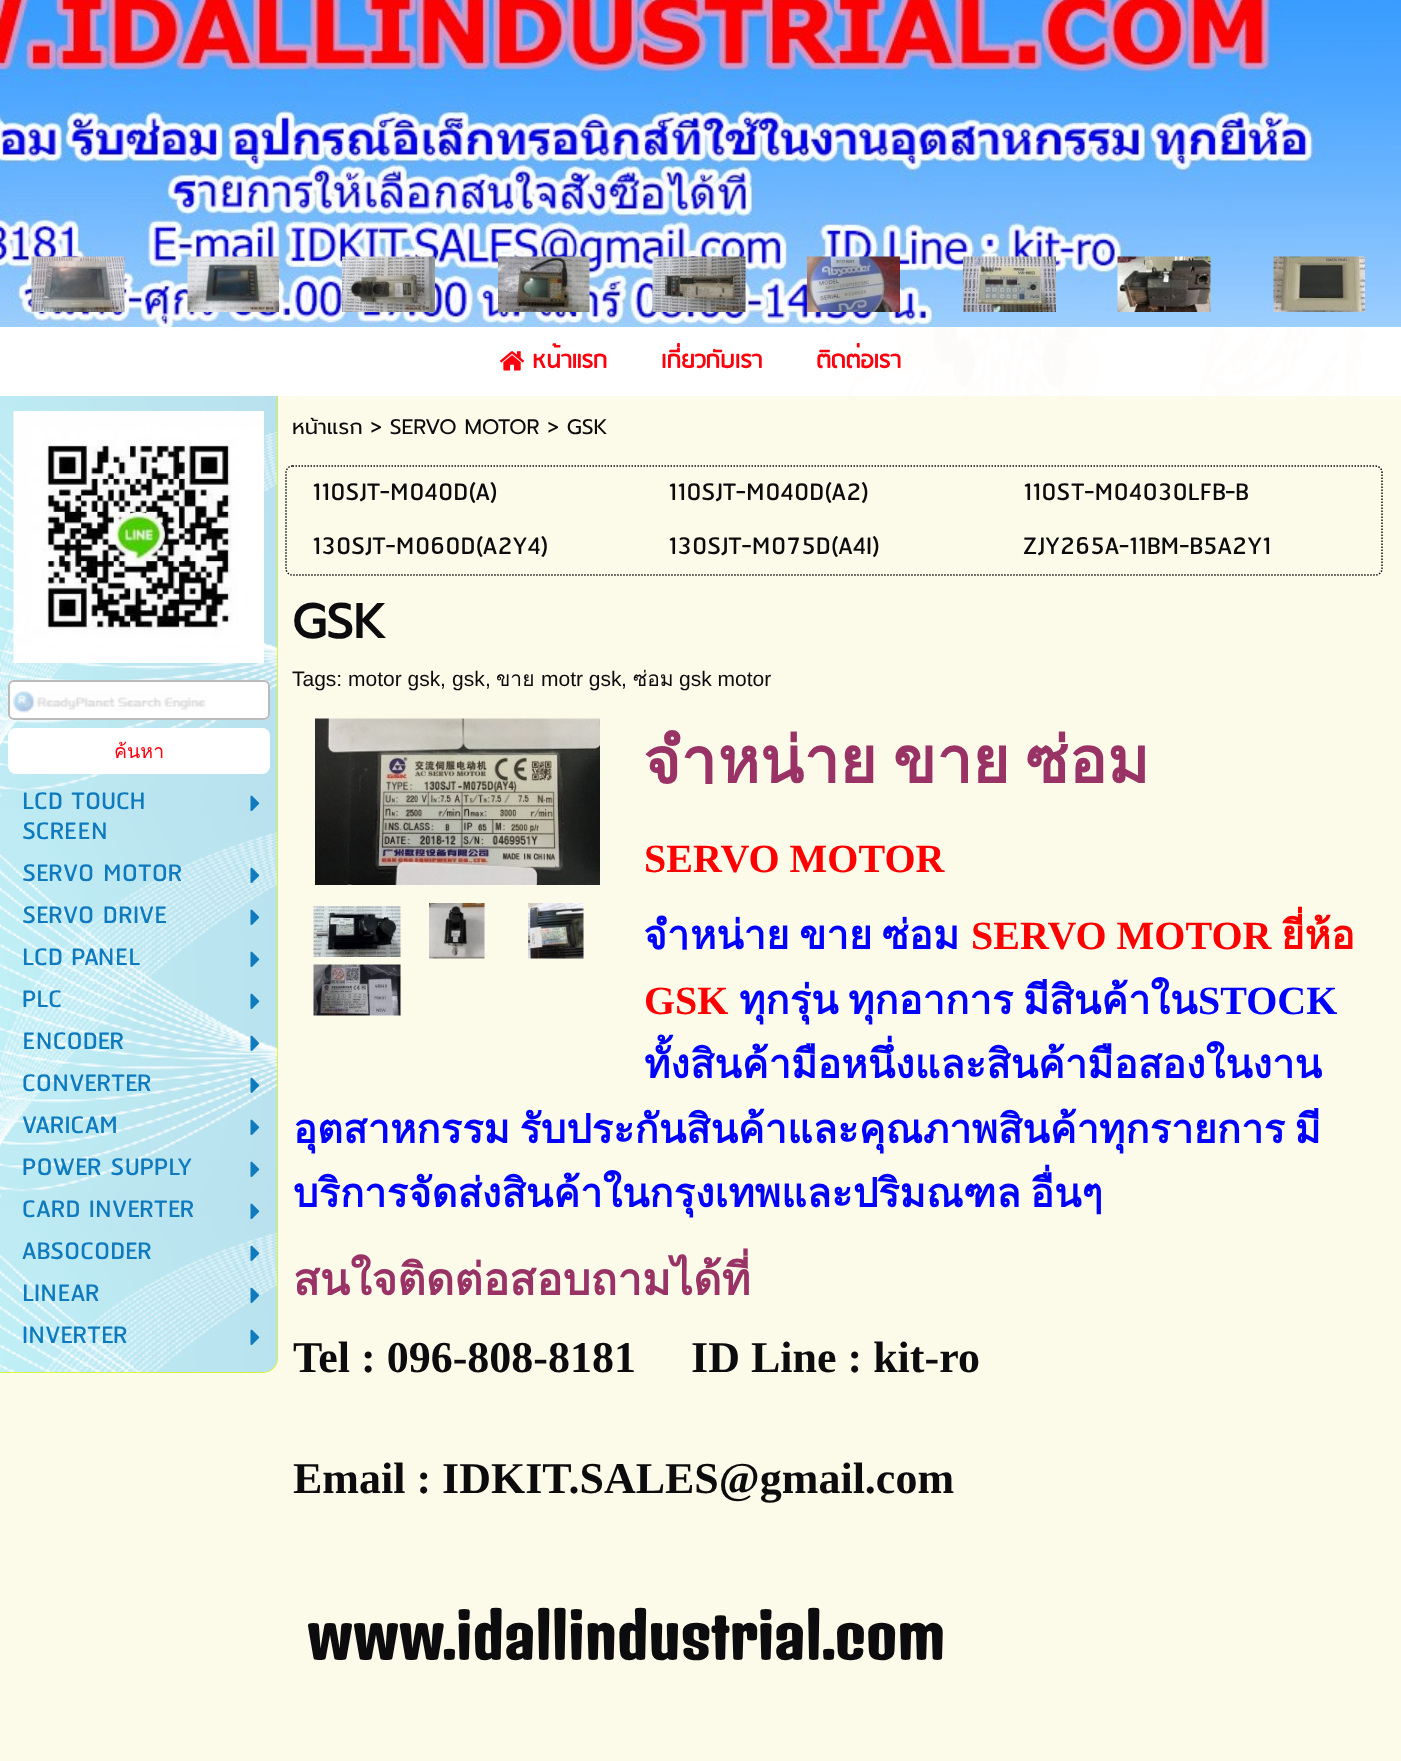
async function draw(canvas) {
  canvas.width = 1401;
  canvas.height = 1761;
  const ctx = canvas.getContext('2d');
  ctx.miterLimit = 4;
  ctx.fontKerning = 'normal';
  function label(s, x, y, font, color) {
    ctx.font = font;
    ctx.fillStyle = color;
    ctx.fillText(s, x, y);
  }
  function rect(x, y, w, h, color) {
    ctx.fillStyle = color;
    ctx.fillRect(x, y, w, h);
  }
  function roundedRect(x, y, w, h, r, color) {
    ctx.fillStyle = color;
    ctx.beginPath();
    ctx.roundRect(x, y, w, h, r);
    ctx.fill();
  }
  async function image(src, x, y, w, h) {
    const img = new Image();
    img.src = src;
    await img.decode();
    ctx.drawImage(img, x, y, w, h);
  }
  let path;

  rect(0, 0, 1401, 1761, '#fff');
  await image('assets/img1.png', 0, 327, 1401, 69);
  await image('assets/img2.png', 0, 0, 1401, 327);
  await image('assets/img3.png', 31, 256, 94, 56);
  await image('assets/img4.png', 187, 256, 92, 56);
  await image('assets/img5.png', 342, 256, 93, 56);
  await image('assets/img6.png', 498, 256, 92, 56);
  await image('assets/img7.png', 652, 256, 94, 56);
  await image('assets/img8.png', 807, 256, 93, 56);
  await image('assets/img9.png', 963, 256, 93, 56);
  await image('assets/img10.png', 1117, 256, 94, 56);
  await image('assets/img11.png', 1273, 256, 92, 56);
  rect(240, 327, 1135, 69, '#fffffff2');
  await image('assets/img12.png', 500, 351, 25, 20);
  label('หน้าแรก', 532, 368, 'bold 27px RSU', '#fa030f');
  label('เกี่ยวกับเรา', 661, 368, 'bold 27px RSU', '#fa030f');
  label('ติดต่อเรา', 816, 368, 'bold 27px RSU', '#fa030f');
  rect(0, 396, 1401, 1365, '#fcfbea');
  label('หน้าแรก > SERVO MOTOR > GSK', 292, 434, '21px Prompt', '#0c0b0d');
  path = new Path2D('M292.5 466H1375.5C1379 466 1382 469 1382 472.5V568.5C1382 572 1379 575 1375.5 575H292.5C289 575 286 572 286 568.5V472.5C286 469 289 466 292.5 466Z');
  ctx.strokeStyle = '#0c0b0d';
  ctx.lineWidth = 1.5;
  ctx.setLineDash([1.5, 1.5]);
  ctx.stroke(path);
  label('110SJT-M040D(A)', 312, 500, '30px RSU', '#0c0b0d');
  label('110SJT-M040D(A2)', 668, 500, '30px RSU', '#0c0b0d');
  label('110ST-M04030LFB-B', 1023, 500, '30px RSU', '#0c0b0d');
  label('130SJT-M060D(A2Y4)', 312, 554, '30px RSU', '#0c0b0d');
  label('130SJT-M075D(A4I)', 668, 554, '30px RSU', '#0c0b0d');
  label('ZJY265A-11BM-B5A2Y1', 1023, 554, '30px RSU', '#0c0b0d');
  label('GSK', 292, 638, 'bold 48px Prompt', '#0c0b0d');
  label('Tags:', 292, 686, '21px Liberation Sans', '#0c0b0d');
  label('motor gsk', 348, 686, '21px Liberation Sans', '#0c0b0d');
  label(',', 440, 686, '21px Liberation Sans', '#0c0b0d');
  label('gsk', 452, 686, '21px Liberation Sans', '#0c0b0d');
  label(',', 485, 686, '21px Liberation Sans', '#0c0b0d');
  label('ขาย', 496, 686, '21px Loma', '#0c0b0d');
  label('motr gsk', 541, 686, '21px Liberation Sans', '#0c0b0d');
  label(',', 621, 686, '21px Liberation Sans', '#0c0b0d');
  label('ซ่อม', 633, 686, '21px Loma', '#0c0b0d');
  label('gsk motor', 679, 686, '21px Liberation Sans', '#0c0b0d');
  ctx.fillStyle = '#dbf703';
  ctx.beginPath();
  ctx.roundRect(0, 396, 278, 977, [0, 0, 15, 0]);
  ctx.fill();
  await image('assets/img13.png', 0, 396, 278, 977);
  await image('assets/img14.png', 13, 411, 251, 252);
  roundedRect(8, 680, 262, 40, 6, '#fff');
  await image('assets/img15.png', 13, 691, 193, 22);
  ctx.beginPath();
  ctx.roundRect(9, 681, 260, 38, 5);
  ctx.strokeStyle = '#bbb';
  ctx.lineWidth = 2;
  ctx.setLineDash([]);
  ctx.stroke();
  roundedRect(8, 728, 262, 46, 8, '#fff');
  label('ค้นหา', 114, 758, '19.5px Loma', '#fa030f');
  label('LCD TOUCH', 22, 809, '30px RSU', '#0f7abd');
  label('SCREEN', 22, 839, '30px RSU', '#0f7abd');
  await image('assets/img16.png', 250, 795, 10, 16);
  label('SERVO MOTOR', 22, 881, '30px RSU', '#0f7abd');
  await image('assets/img17.png', 250, 867, 10, 17);
  label('SERVO DRIVE', 22, 923, '30px RSU', '#0f7abd');
  await image('assets/img18.png', 250, 909, 10, 16);
  label('LCD PANEL', 22, 965, '30px RSU', '#0f7abd');
  await image('assets/img19.png', 250, 951, 10, 16);
  label('PLC', 22, 1007, '30px RSU', '#0f7abd');
  await image('assets/img20.png', 250, 993, 10, 16);
  label('ENCODER', 22, 1049, '30px RSU', '#0f7abd');
  await image('assets/img21.png', 250, 1035, 10, 17);
  label('CONVERTER', 22, 1091, '30px RSU', '#0f7abd');
  await image('assets/img22.png', 250, 1077, 10, 17);
  label('VARICAM', 22, 1133, '30px RSU', '#0f7abd');
  await image('assets/img23.png', 250, 1119, 10, 16);
  label('POWER SUPPLY', 22, 1175, '30px RSU', '#0f7abd');
  await image('assets/img16.png', 250, 1161, 10, 16);
  label('CARD INVERTER', 22, 1217, '30px RSU', '#0f7abd');
  await image('assets/img16.png', 250, 1203, 10, 16);
  label('ABSOCODER', 22, 1259, '30px RSU', '#0f7abd');
  await image('assets/img24.png', 250, 1245, 10, 17);
  label('LINEAR', 22, 1301, '30px RSU', '#0f7abd');
  await image('assets/img25.png', 250, 1287, 10, 16);
  label('INVERTER', 22, 1343, '30px RSU', '#0f7abd');
  await image('assets/img26.png', 250, 1329, 10, 16);
  await image('assets/img27.png', 315, 718, 285, 167);
  await image('assets/img28.png', 313, 906, 88, 51);
  await image('assets/img29.png', 429, 903, 56, 56);
  await image('assets/img30.png', 528, 903, 56, 56);
  await image('assets/img31.png', 313, 964, 88, 52);
  ctx.wordSpacing = '-6px';
  label('จำหน่าย ขาย ซ่อม', 644, 783, 'bold 64px Loma', '#936');
  ctx.wordSpacing = '0px';
  label('SERVO MOTOR', 644, 872, 'bold 40px Liberation Serif', '#f00');
  ctx.wordSpacing = '-4px';
  label('จำหน่าย ขาย ซ่อม', 644, 949, 'bold 40px Loma', '#00f');
  ctx.wordSpacing = '0px';
  label('SERVO MOTOR', 971, 949, 'bold 40px Liberation Serif', '#f00');
  label('ยี่ห้อ', 1281, 949, 'bold 40px Loma', '#f00');
  label('GSK', 644, 1014, 'bold 40px Liberation Serif', '#f00');
  ctx.wordSpacing = '-4px';
  label('ทุกรุ่น ทุกอาการ', 739, 1014, 'bold 40px Loma', '#00f');
  ctx.wordSpacing = '0px';
  label('มีสินค้าใน', 1023, 1014, 'bold 40px Loma', '#00f');
  label('STOCK', 1198, 1014, 'bold 40px Liberation Serif', '#00f');
  label('ทั้งสินค้ามือหนึ่งและสินค้ามือสองในงาน', 644, 1078, 'bold 40px Loma', '#00f');
  ctx.wordSpacing = '-4px';
  label('อุตสาหกรรม รับประกันสินค้าและคุณภาพสินค้าทุกรายการ มี', 293, 1143, 'bold 40px Loma', '#00f');
  ctx.wordSpacing = '0px';
  label('บริการจัดส่งสินค้าในกรุงเทพและปริมณฑล', 293, 1207, 'bold 40px Loma', '#00f');
  label('อื่นๆ', 1030, 1207, 'bold 40px Loma', '#00f');
  label('สนใจติดต่อสอบถามได้ที่', 293, 1295, 'bold 44px Loma', '#936');
  label('Tel : 096-808-8181     ID Line : kit-ro', 293, 1372, 'bold 44px Liberation Serif', '#0c0b0d');
  label('Email : IDKIT.SALES@gmail.com', 293, 1493, 'bold 44px Liberation Serif', '#0c0b0d');
  label('www.idallindustrial.com', 307, 1660, 'bold 60px Denk One', '#0c0b0d');
}

draw(document.querySelector('canvas'));
